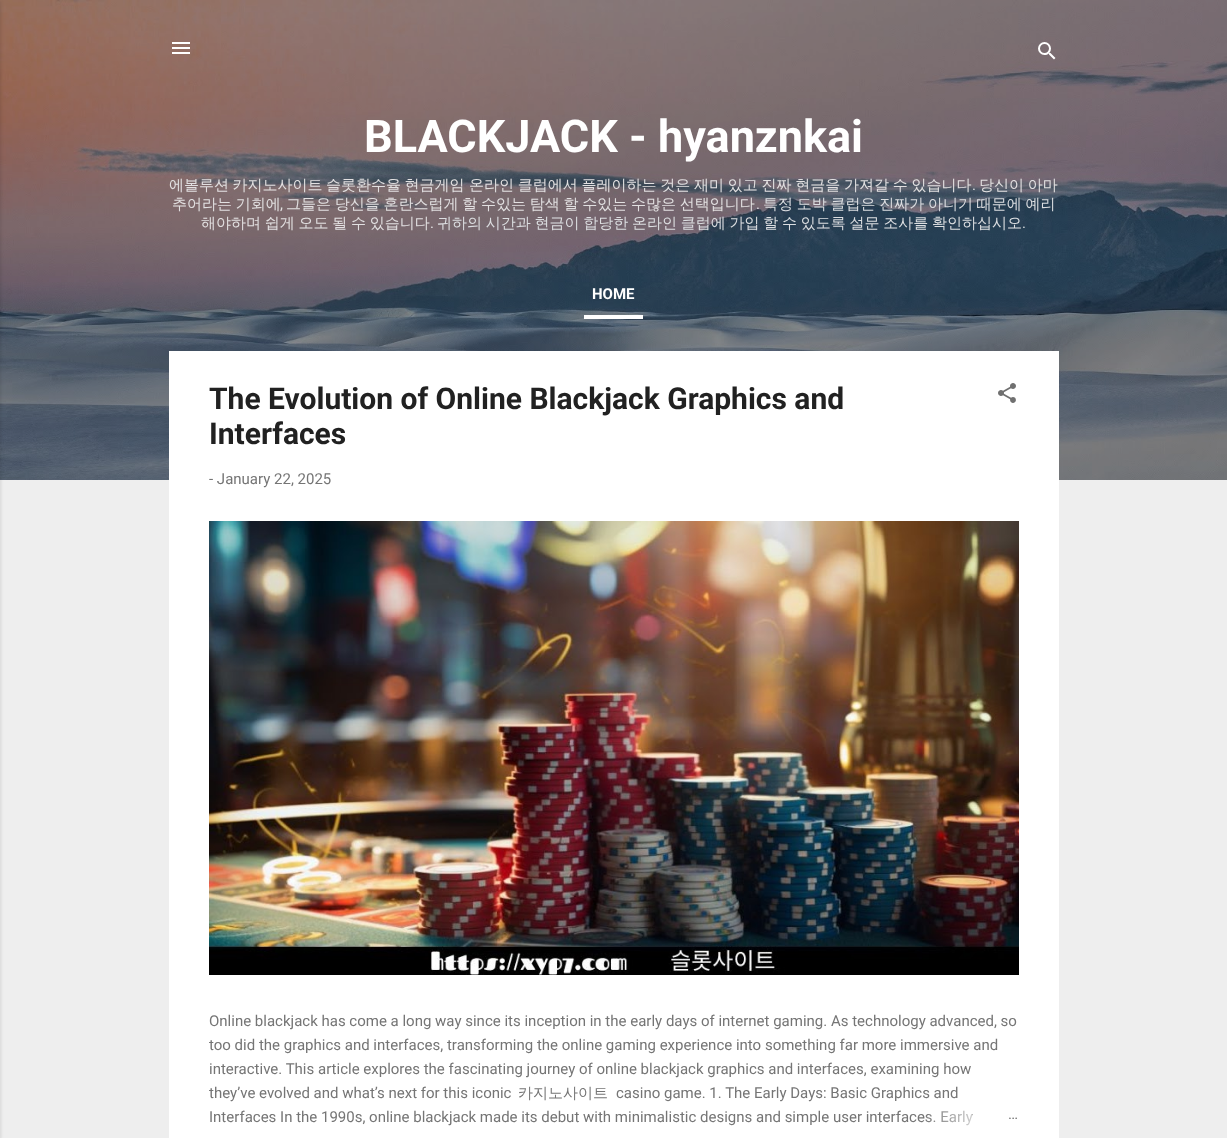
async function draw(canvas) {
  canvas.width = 1227;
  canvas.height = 1138;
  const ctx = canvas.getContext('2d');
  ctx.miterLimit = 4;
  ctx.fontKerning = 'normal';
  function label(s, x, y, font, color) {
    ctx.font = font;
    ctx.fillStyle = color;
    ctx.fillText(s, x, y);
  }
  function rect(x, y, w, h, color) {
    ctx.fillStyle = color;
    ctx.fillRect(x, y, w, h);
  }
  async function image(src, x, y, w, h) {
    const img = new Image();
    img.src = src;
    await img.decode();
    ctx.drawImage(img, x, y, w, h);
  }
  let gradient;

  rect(0, 0, 1227, 1138, '#eee');
  await image('assets/img1.png', 0, 0, 1227, 480);
  ctx.fillStyle = '#0000001a';
  ctx.filter = 'blur(1.5px)';
  ctx.beginPath();
  ctx.rect(-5, 1, 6, 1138);
  ctx.fill();
  ctx.filter = 'none';
  await image('assets/img2.png', 172, 42, 18, 12);
  await image('assets/img3.png', 1038, 42, 18, 18);
  label('BLACKJACK - hyanznkai', 364, 152, 'bold 45px Roboto', '#fff');
  ctx.wordSpacing = '-1px';
  label('에볼루션 카지노사이트 슬롯환수율 현금게임', 169, 190, '500 15px WenQuanYi Zen Hei', '#e2e0e1');
  ctx.wordSpacing = '-0.75px';
  label('온라인 클럽에서 플레이하는 것은 재미 있고 진짜 현금을 가져갈 수 있습니다', 469, 190, '500 15px WenQuanYi Zen Hei', '#e2e0e1');
  ctx.wordSpacing = '0px';
  label('.', 972, 190, '15px Roboto', '#dcdee1');
  ctx.wordSpacing = '-0.75px';
  label('당신이 아마', 979, 190, '500 15px WenQuanYi Zen Hei', '#e2e0e1');
  label('추어라는 기회에', 172, 209, '500 15px WenQuanYi Zen Hei', '#e2e0e1');
  ctx.wordSpacing = '0px';
  label(',', 280, 209, '15px Roboto', '#e2e0e1');
  ctx.wordSpacing = '-0.75px';
  label('그들은 당신을 혼란스럽게 할 수있는 탐색 할 수있는 수많은 선택입니다', 286, 209, '500 15px WenQuanYi Zen Hei', '#e2e0e1');
  ctx.wordSpacing = '0px';
  label('.', 756, 209, '15px Roboto', '#e2e0e1');
  ctx.wordSpacing = '-0.75px';
  label('특정 도박 클럽은 진짜가 아니기 때문에 예리', 763, 209, '500 15px WenQuanYi Zen Hei', '#dcdee1');
  label('해야하며 쉽게 오도 될 수 있습니다', 201, 228, '500 15px WenQuanYi Zen Hei', '#e2e0e1');
  ctx.wordSpacing = '0px';
  label('.', 430, 228, '15px Roboto', '#e2e0e1');
  ctx.wordSpacing = '-0.75px';
  label('귀하의 시간과 현금이 합당한 온라인 클럽에 가입 할 수 있도록 설문 조사를 확인하십시오', 437, 228, '500 15px WenQuanYi Zen Hei', '#dcdee1');
  ctx.wordSpacing = '0px';
  label('.', 1022, 228, '15px Roboto', '#d4d9dd');
  rect(584, 315, 59, 4, '#fff');
  label('HOME', 592, 299, 'bold 15px Roboto', '#fff');
  rect(169, 351, 890, 787, '#fff');
  label('The Evolution of Online Blackjack Graphics and', 209, 409, 'bold 30px Roboto', '#212121');
  label('Interfaces', 209, 444, 'bold 30px Roboto', '#212121');
  await image('assets/img4.png', 998, 383, 18, 20);
  label('- January 22, 2025', 209, 484, '15px Roboto', '#757575');
  await image('assets/img5.png', 209, 521, 810, 454);
  label('Online blackjack has come a long way since its inception in the early days of internet gaming. As technology advanced, so', 209, 1026, '15px Roboto', '#757575');
  label('too did the graphics and interfaces, transforming the online gaming experience into something far more immersive and', 209, 1050, '15px Roboto', '#757575');
  label('interactive. This article explores the fascinating journey of online blackjack graphics and interfaces, examining how', 209, 1074, '15px Roboto', '#757575');
  label('they’ve evolved and what’s next for this iconic', 209, 1098, '15px Roboto', '#757575');
  label('카지노사이트', 518, 1098, '500 15px WenQuanYi Zen Hei', '#757575');
  label('casino game. 1. The Early Days: Basic Graphics and', 616, 1098, '15px Roboto', '#757575');
  label('Interfaces In the 1990s, online blackjack made its debut with minimalistic designs and simple user interfaces. Early', 209, 1122, '15px Roboto', '#757575');
  gradient = ctx.createLinearGradient(1019, 1117, 923, 1117);
  gradient.addColorStop(0, '#fff');
  gradient.addColorStop(0.2, '#fff');
  gradient.addColorStop(1, '#ffffff00');
  ctx.fillStyle = gradient;
  ctx.fillRect(925, 1110, 47, 16);
  label('…', 1008, 1119, '15px Roboto', '#757575');
}

draw(document.querySelector('canvas'));
